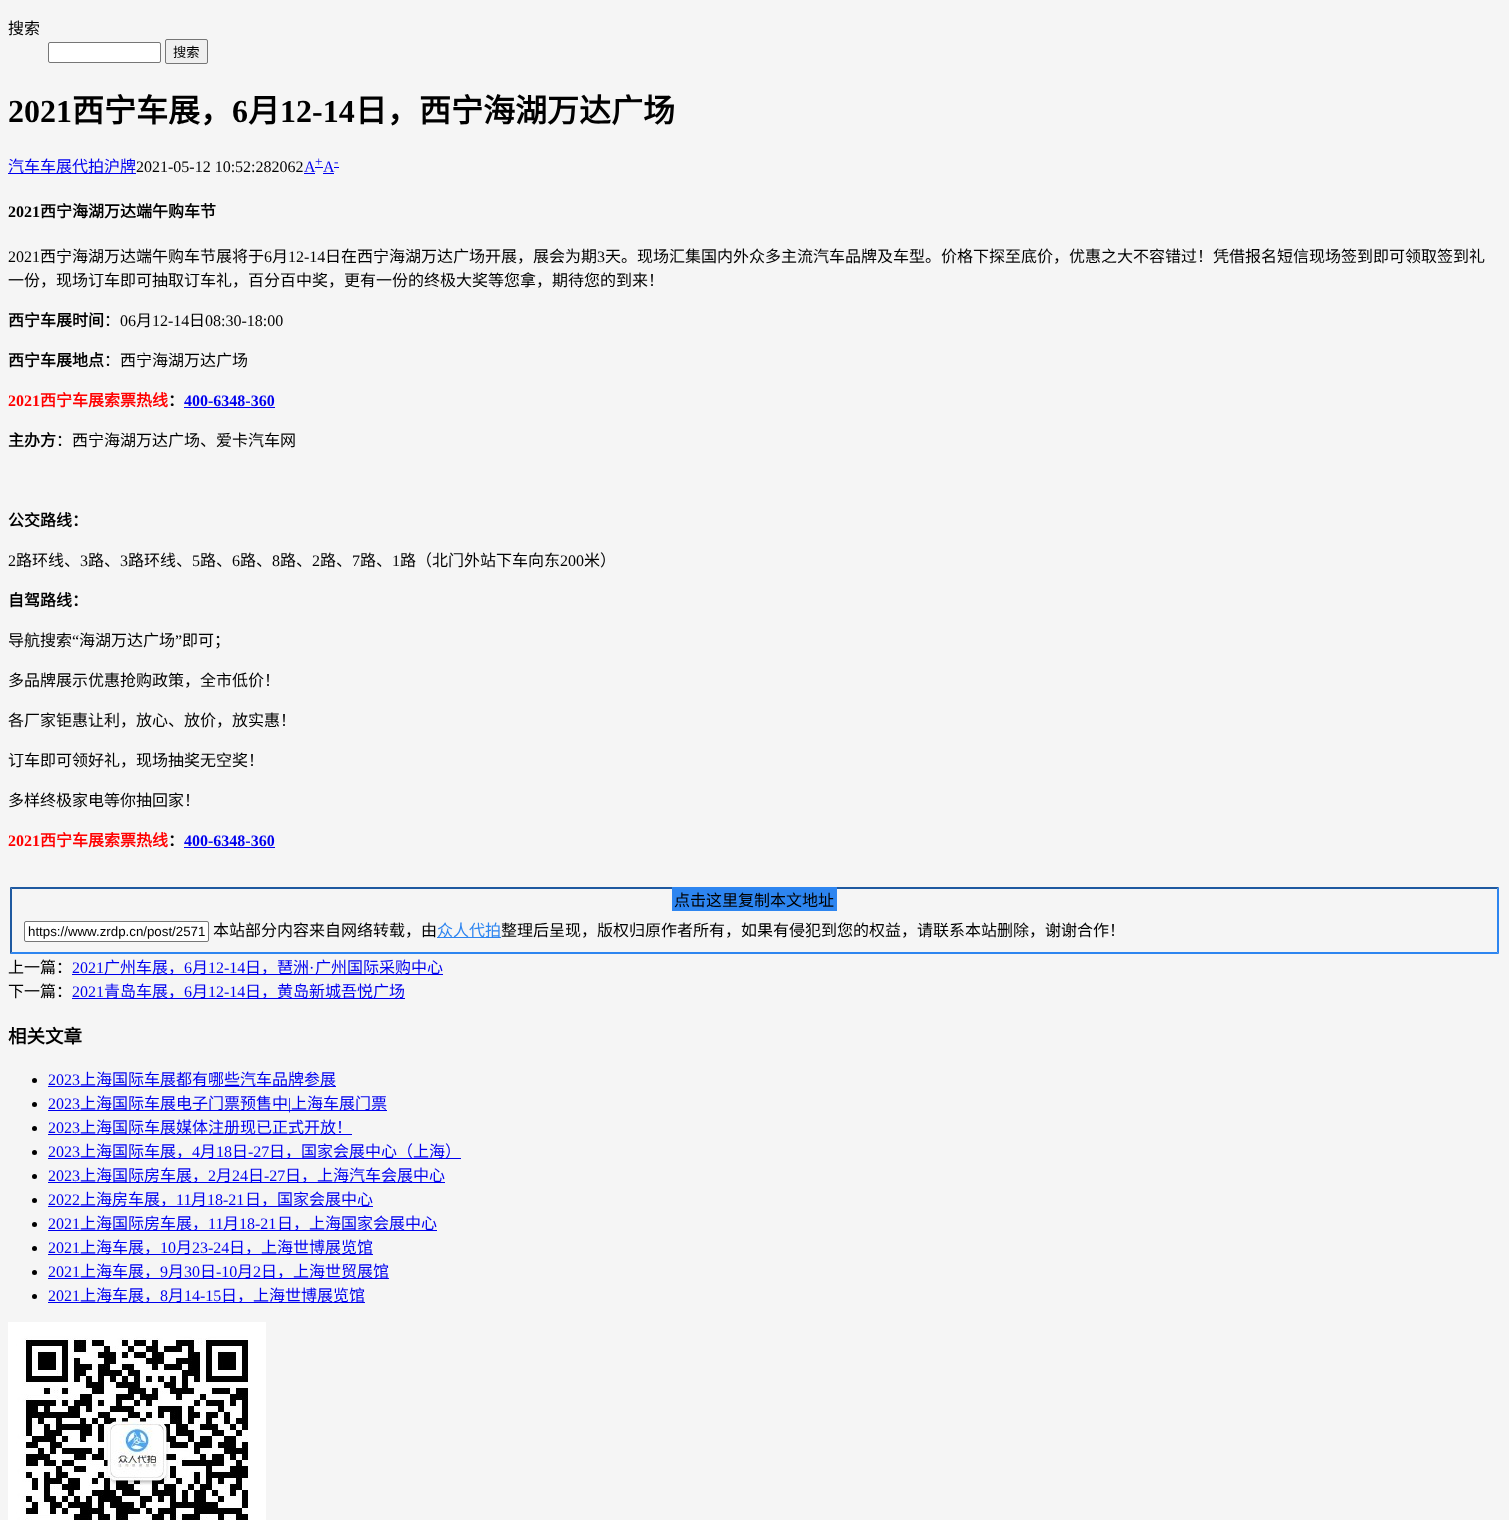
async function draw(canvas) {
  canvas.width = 1509;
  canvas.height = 1520;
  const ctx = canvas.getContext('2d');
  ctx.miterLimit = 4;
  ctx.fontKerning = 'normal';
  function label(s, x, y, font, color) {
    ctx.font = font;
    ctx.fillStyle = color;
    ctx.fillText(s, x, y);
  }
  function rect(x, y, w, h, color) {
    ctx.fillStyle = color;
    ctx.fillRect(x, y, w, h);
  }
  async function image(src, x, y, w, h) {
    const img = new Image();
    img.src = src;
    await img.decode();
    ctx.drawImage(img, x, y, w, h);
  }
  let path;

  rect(0, 0, 1509, 1520, '#f5f5f5');
  label('搜索', 8, 34, '16px Noto Sans CJK SC', '#000');
  ctx.fillStyle = '#fff';
  ctx.beginPath();
  ctx.roundRect(48.5, 42.5, 112, 20, 1.5);
  ctx.fill();
  ctx.strokeStyle = '#767676';
  ctx.stroke();
  ctx.fillStyle = '#efefef';
  ctx.beginPath();
  ctx.roundRect(165.5, 39.5, 42, 24, 1.5);
  ctx.fill();
  ctx.stroke();
  label('搜索', 173, 57, '13.3px Noto Sans CJK SC', '#000');
  label('2021', 8, 122, 'bold 32px Liberation Serif', '#000');
  label('西宁车展，', 72, 122, 'bold 32px Noto Sans CJK SC', '#000');
  label('6', 232, 122, 'bold 32px Liberation Serif', '#000');
  label('月', 248, 122, 'bold 32px Noto Sans CJK SC', '#000');
  label('12-14', 280, 122, 'bold 32px Liberation Serif', '#000');
  label('日，西宁海湖万达广场', 355, 122, 'bold 32px Noto Sans CJK SC', '#000');
  rect(8, 173, 128, 1, '#00e');
  label('汽车车展代拍沪牌', 8, 172, '16px Noto Sans CJK SC', '#00e');
  label('2021-05-12 10:52:282062', 136, 172, '16px Liberation Serif', '#000');
  label('A', 304, 172, '16px Liberation Serif', '#00e');
  rect(304, 173, 11, 1, '#00e');
  rect(315, 167, 8, 1, '#00e');
  label('+', 315, 166, '13.3px Liberation Serif', '#00e');
  label('A', 323, 172, '16px Liberation Serif', '#00e');
  rect(323, 173, 11, 1, '#00e');
  rect(334, 167, 5, 1, '#00e');
  label('-', 334, 166, '13.3px Liberation Serif', '#00e');
  label('2021', 8, 217, 'bold 16px Liberation Serif', '#000');
  label('西宁海湖万达端午购车节', 40, 217, 'bold 16px Noto Sans CJK SC', '#000');
  label('2021', 8, 262, '16px Liberation Serif', '#000');
  label('西宁海湖万达端午购车节展将于', 40, 262, '16px Noto Sans CJK SC', '#000');
  label('6', 264, 262, '16px Liberation Serif', '#000');
  label('月', 272, 262, '16px Noto Sans CJK SC', '#000');
  label('12-14', 288, 262, '16px Liberation Serif', '#000');
  label('日在西宁海湖万达广场开展，展会为期', 325, 262, '16px Noto Sans CJK SC', '#000');
  label('3', 597, 262, '16px Liberation Serif', '#000');
  label('天。现场汇集国内外众多主流汽车品牌及车型。价格下探至底价，优惠之大不容错过！凭借报名短信现场签到即可领取签到礼', 605, 262, '16px Noto Sans CJK SC', '#000');
  label('一份，现场订车即可抽取订车礼，百分百中奖，更有一份的终极大奖等您拿，期待您的到来！', 8, 286, '16px Noto Sans CJK SC', '#000');
  label('西宁车展时间', 8, 326, 'bold 16px Noto Sans CJK SC', '#000');
  label('：', 104, 326, '16px Noto Sans CJK SC', '#000');
  label('06', 120, 326, '16px Liberation Serif', '#000');
  label('月', 136, 326, '16px Noto Sans CJK SC', '#000');
  label('12-14', 152, 326, '16px Liberation Serif', '#000');
  label('日', 189, 326, '16px Noto Sans CJK SC', '#000');
  label('08:30-18:00', 205, 326, '16px Liberation Serif', '#000');
  label('西宁车展地点', 8, 366, 'bold 16px Noto Sans CJK SC', '#000');
  label('：西宁海湖万达广场', 104, 366, '16px Noto Sans CJK SC', '#000');
  label('2021', 8, 406, 'bold 16px Liberation Serif', '#f00');
  label('西宁车展索票热线', 40, 406, 'bold 16px Noto Sans CJK SC', '#f00');
  label('：', 168, 406, 'bold 16px Noto Sans CJK SC', '#000');
  label('400-6348-360', 184, 406, 'bold 16px Liberation Serif', '#00e');
  rect(184, 407, 91, 1, '#00e');
  label('主办方', 8, 446, 'bold 16px Noto Sans CJK SC', '#000');
  label('：西宁海湖万达广场、爱卡汽车网', 56, 446, '16px Noto Sans CJK SC', '#000');
  label('公交路线：', 8, 526, 'bold 16px Noto Sans CJK SC', '#000');
  label('2', 8, 566, '16px Liberation Serif', '#000');
  label('路环线、', 16, 566, '16px Noto Sans CJK SC', '#000');
  label('3', 80, 566, '16px Liberation Serif', '#000');
  label('路、', 88, 566, '16px Noto Sans CJK SC', '#000');
  label('3', 120, 566, '16px Liberation Serif', '#000');
  label('路环线、', 128, 566, '16px Noto Sans CJK SC', '#000');
  label('5', 192, 566, '16px Liberation Serif', '#000');
  label('路、', 200, 566, '16px Noto Sans CJK SC', '#000');
  label('6', 232, 566, '16px Liberation Serif', '#000');
  label('路、', 240, 566, '16px Noto Sans CJK SC', '#000');
  label('8', 272, 566, '16px Liberation Serif', '#000');
  label('路、', 280, 566, '16px Noto Sans CJK SC', '#000');
  label('2', 312, 566, '16px Liberation Serif', '#000');
  label('路、', 320, 566, '16px Noto Sans CJK SC', '#000');
  label('7', 352, 566, '16px Liberation Serif', '#000');
  label('路、', 360, 566, '16px Noto Sans CJK SC', '#000');
  label('1', 392, 566, '16px Liberation Serif', '#000');
  label('路（北门外站下车向东', 400, 566, '16px Noto Sans CJK SC', '#000');
  label('200', 560, 566, '16px Liberation Serif', '#000');
  label('米）', 584, 566, '16px Noto Sans CJK SC', '#000');
  label('自驾路线：', 8, 606, 'bold 16px Noto Sans CJK SC', '#000');
  label('导航搜索', 8, 646, '16px Noto Sans CJK SC', '#000');
  label('“', 72, 646, '16px Liberation Serif', '#000');
  label('海湖万达广场', 79, 646, '16px Noto Sans CJK SC', '#000');
  label('”', 175, 646, '16px Liberation Serif', '#000');
  label('即可；', 182, 646, '16px Noto Sans CJK SC', '#000');
  label('多品牌展示优惠抢购政策，全市低价！', 8, 686, '16px Noto Sans CJK SC', '#000');
  label('各厂家钜惠让利，放心、放价，放实惠！', 8, 726, '16px Noto Sans CJK SC', '#000');
  label('订车即可领好礼，现场抽奖无空奖！', 8, 766, '16px Noto Sans CJK SC', '#000');
  label('多样终极家电等你抽回家！', 8, 806, '16px Noto Sans CJK SC', '#000');
  label('2021', 8, 846, 'bold 16px Liberation Serif', '#f00');
  label('西宁车展索票热线', 40, 846, 'bold 16px Noto Sans CJK SC', '#f00');
  label('：', 168, 846, 'bold 16px Noto Sans CJK SC', '#000');
  label('400-6348-360', 184, 846, 'bold 16px Liberation Serif', '#00e');
  rect(184, 847, 91, 1, '#00e');
  ctx.fillStyle = '#1e59a0';
  path = new Path2D('M10 887H1499L1497 889H12Z');
  ctx.fill(path);
  ctx.fillStyle = '#2d85f0';
  path = new Path2D('M1499 887V954L1497 952V889Z');
  ctx.fill(path);
  path = new Path2D('M1499 954H10L12 952H1497Z');
  ctx.fill(path);
  ctx.fillStyle = '#1e59a0';
  path = new Path2D('M10 954V887L12 889V952Z');
  ctx.fill(path);
  rect(672, 887, 165, 24, '#2d85f0');
  label('点击这里复制本文地址', 674, 906, '16px Noto Sans CJK SC', '#000');
  ctx.fillStyle = '#fff';
  ctx.beginPath();
  ctx.roundRect(24.5, 921.5, 184, 20, 1.5);
  ctx.fill();
  ctx.stroke();
  label('https://www.zrdp.cn/post/2571', 28, 936, '13.3px Liberation Sans', '#000');
  label('本站部分内容来自网络转载，由', 213, 936, '16px Noto Sans CJK SC', '#000');
  rect(437, 937, 64, 1, '#2d85f0');
  label('众人代拍', 437, 936, '16px Noto Sans CJK SC', '#2d85f0');
  label('整理后呈现，版权归原作者所有，如果有侵犯到您的权益，请联系本站删除，谢谢合作！', 501, 936, '16px Noto Sans CJK SC', '#000');
  label('上一篇：', 8, 973, '16px Noto Sans CJK SC', '#000');
  label('2021', 72, 973, '16px Liberation Serif', '#00e');
  rect(72, 974, 371, 1, '#00e');
  label('广州车展，', 104, 973, '16px Noto Sans CJK SC', '#00e');
  label('6', 184, 973, '16px Liberation Serif', '#00e');
  label('月', 192, 973, '16px Noto Sans CJK SC', '#00e');
  label('12-14', 208, 973, '16px Liberation Serif', '#00e');
  label('日，琶洲', 245, 973, '16px Noto Sans CJK SC', '#00e');
  label('·', 309, 973, '16px Liberation Serif', '#00e');
  label('广州国际采购中心', 315, 973, '16px Noto Sans CJK SC', '#00e');
  label('下一篇：', 8, 997, '16px Noto Sans CJK SC', '#000');
  label('2021', 72, 997, '16px Liberation Serif', '#00e');
  rect(72, 998, 333, 1, '#00e');
  label('青岛车展，', 104, 997, '16px Noto Sans CJK SC', '#00e');
  label('6', 184, 997, '16px Liberation Serif', '#00e');
  label('月', 192, 997, '16px Noto Sans CJK SC', '#00e');
  label('12-14', 208, 997, '16px Liberation Serif', '#00e');
  label('日，黄岛新城吾悦广场', 245, 997, '16px Noto Sans CJK SC', '#00e');
  label('相关文章', 8, 1043, 'bold 18.5px Noto Sans CJK SC', '#000');
  ctx.beginPath();
  ctx.arc(34.5, 1080.5, 2.5, 0, 2 * Math.PI);
  ctx.fill();
  label('2023', 48, 1085, '16px Liberation Serif', '#00e');
  rect(48, 1086, 288, 1, '#00e');
  label('上海国际车展都有哪些汽车品牌参展', 80, 1085, '16px Noto Sans CJK SC', '#00e');
  ctx.fillStyle = '#000';
  ctx.beginPath();
  ctx.arc(34.5, 1104.5, 2.5, 0, 2 * Math.PI);
  ctx.fill();
  label('2023', 48, 1109, '16px Liberation Serif', '#00e');
  rect(48, 1110, 339, 1, '#00e');
  label('上海国际车展电子门票预售中', 80, 1109, '16px Noto Sans CJK SC', '#00e');
  label('|', 288, 1109, '16px Liberation Serif', '#00e');
  label('上海车展门票', 291, 1109, '16px Noto Sans CJK SC', '#00e');
  ctx.fillStyle = '#000';
  ctx.beginPath();
  ctx.arc(34.5, 1128.5, 2.5, 0, 2 * Math.PI);
  ctx.fill();
  label('2023', 48, 1133, '16px Liberation Serif', '#00e');
  rect(48, 1134, 304, 1, '#00e');
  label('上海国际车展媒体注册现已正式开放！', 80, 1133, '16px Noto Sans CJK SC', '#00e');
  ctx.fillStyle = '#000';
  ctx.beginPath();
  ctx.arc(34.5, 1152.5, 2.5, 0, 2 * Math.PI);
  ctx.fill();
  label('2023', 48, 1157, '16px Liberation Serif', '#00e');
  rect(48, 1158, 413, 1, '#00e');
  label('上海国际车展，', 80, 1157, '16px Noto Sans CJK SC', '#00e');
  label('4', 192, 1157, '16px Liberation Serif', '#00e');
  label('月', 200, 1157, '16px Noto Sans CJK SC', '#00e');
  label('18', 216, 1157, '16px Liberation Serif', '#00e');
  label('日', 232, 1157, '16px Noto Sans CJK SC', '#00e');
  label('-27', 248, 1157, '16px Liberation Serif', '#00e');
  label('日，国家会展中心（上海）', 269, 1157, '16px Noto Sans CJK SC', '#00e');
  ctx.fillStyle = '#000';
  ctx.beginPath();
  ctx.arc(34.5, 1176.5, 2.5, 0, 2 * Math.PI);
  ctx.fill();
  label('2023', 48, 1181, '16px Liberation Serif', '#00e');
  rect(48, 1182, 397, 1, '#00e');
  label('上海国际房车展，', 80, 1181, '16px Noto Sans CJK SC', '#00e');
  label('2', 208, 1181, '16px Liberation Serif', '#00e');
  label('月', 216, 1181, '16px Noto Sans CJK SC', '#00e');
  label('24', 232, 1181, '16px Liberation Serif', '#00e');
  label('日', 248, 1181, '16px Noto Sans CJK SC', '#00e');
  label('-27', 264, 1181, '16px Liberation Serif', '#00e');
  label('日，上海汽车会展中心', 285, 1181, '16px Noto Sans CJK SC', '#00e');
  ctx.fillStyle = '#000';
  ctx.beginPath();
  ctx.arc(34.5, 1200.5, 2.5, 0, 2 * Math.PI);
  ctx.fill();
  label('2022', 48, 1205, '16px Liberation Serif', '#00e');
  rect(48, 1206, 325, 1, '#00e');
  label('上海房车展，', 80, 1205, '16px Noto Sans CJK SC', '#00e');
  label('11', 176, 1205, '16px Liberation Serif', '#00e');
  label('月', 191, 1205, '16px Noto Sans CJK SC', '#00e');
  label('18-21', 207, 1205, '16px Liberation Serif', '#00e');
  label('日，国家会展中心', 245, 1205, '16px Noto Sans CJK SC', '#00e');
  ctx.fillStyle = '#000';
  ctx.beginPath();
  ctx.arc(34.5, 1224.5, 2.5, 0, 2 * Math.PI);
  ctx.fill();
  label('2021', 48, 1229, '16px Liberation Serif', '#00e');
  rect(48, 1230, 389, 1, '#00e');
  label('上海国际房车展，', 80, 1229, '16px Noto Sans CJK SC', '#00e');
  label('11', 208, 1229, '16px Liberation Serif', '#00e');
  label('月', 223, 1229, '16px Noto Sans CJK SC', '#00e');
  label('18-21', 239, 1229, '16px Liberation Serif', '#00e');
  label('日，上海国家会展中心', 277, 1229, '16px Noto Sans CJK SC', '#00e');
  ctx.fillStyle = '#000';
  ctx.beginPath();
  ctx.arc(34.5, 1248.5, 2.5, 0, 2 * Math.PI);
  ctx.fill();
  label('2021', 48, 1253, '16px Liberation Serif', '#00e');
  rect(48, 1254, 325, 1, '#00e');
  label('上海车展，', 80, 1253, '16px Noto Sans CJK SC', '#00e');
  label('10', 160, 1253, '16px Liberation Serif', '#00e');
  label('月', 176, 1253, '16px Noto Sans CJK SC', '#00e');
  label('23-24', 192, 1253, '16px Liberation Serif', '#00e');
  label('日，上海世博展览馆', 229, 1253, '16px Noto Sans CJK SC', '#00e');
  ctx.fillStyle = '#000';
  ctx.beginPath();
  ctx.arc(34.5, 1272.5, 2.5, 0, 2 * Math.PI);
  ctx.fill();
  label('2021', 48, 1277, '16px Liberation Serif', '#00e');
  rect(48, 1278, 341, 1, '#00e');
  label('上海车展，', 80, 1277, '16px Noto Sans CJK SC', '#00e');
  label('9', 160, 1277, '16px Liberation Serif', '#00e');
  label('月', 168, 1277, '16px Noto Sans CJK SC', '#00e');
  label('30', 184, 1277, '16px Liberation Serif', '#00e');
  label('日', 200, 1277, '16px Noto Sans CJK SC', '#00e');
  label('-10', 216, 1277, '16px Liberation Serif', '#00e');
  label('月', 237, 1277, '16px Noto Sans CJK SC', '#00e');
  label('2', 253, 1277, '16px Liberation Serif', '#00e');
  label('日，上海世贸展馆', 261, 1277, '16px Noto Sans CJK SC', '#00e');
  ctx.fillStyle = '#000';
  ctx.beginPath();
  ctx.arc(34.5, 1296.5, 2.5, 0, 2 * Math.PI);
  ctx.fill();
  label('2021', 48, 1301, '16px Liberation Serif', '#00e');
  rect(48, 1302, 317, 1, '#00e');
  label('上海车展，', 80, 1301, '16px Noto Sans CJK SC', '#00e');
  label('8', 160, 1301, '16px Liberation Serif', '#00e');
  label('月', 168, 1301, '16px Noto Sans CJK SC', '#00e');
  label('14-15', 184, 1301, '16px Liberation Serif', '#00e');
  label('日，上海世博展览馆', 221, 1301, '16px Noto Sans CJK SC', '#00e');
  await image('assets/img1.png', 8, 1322, 258, 198);
}

draw(document.querySelector('canvas'));
